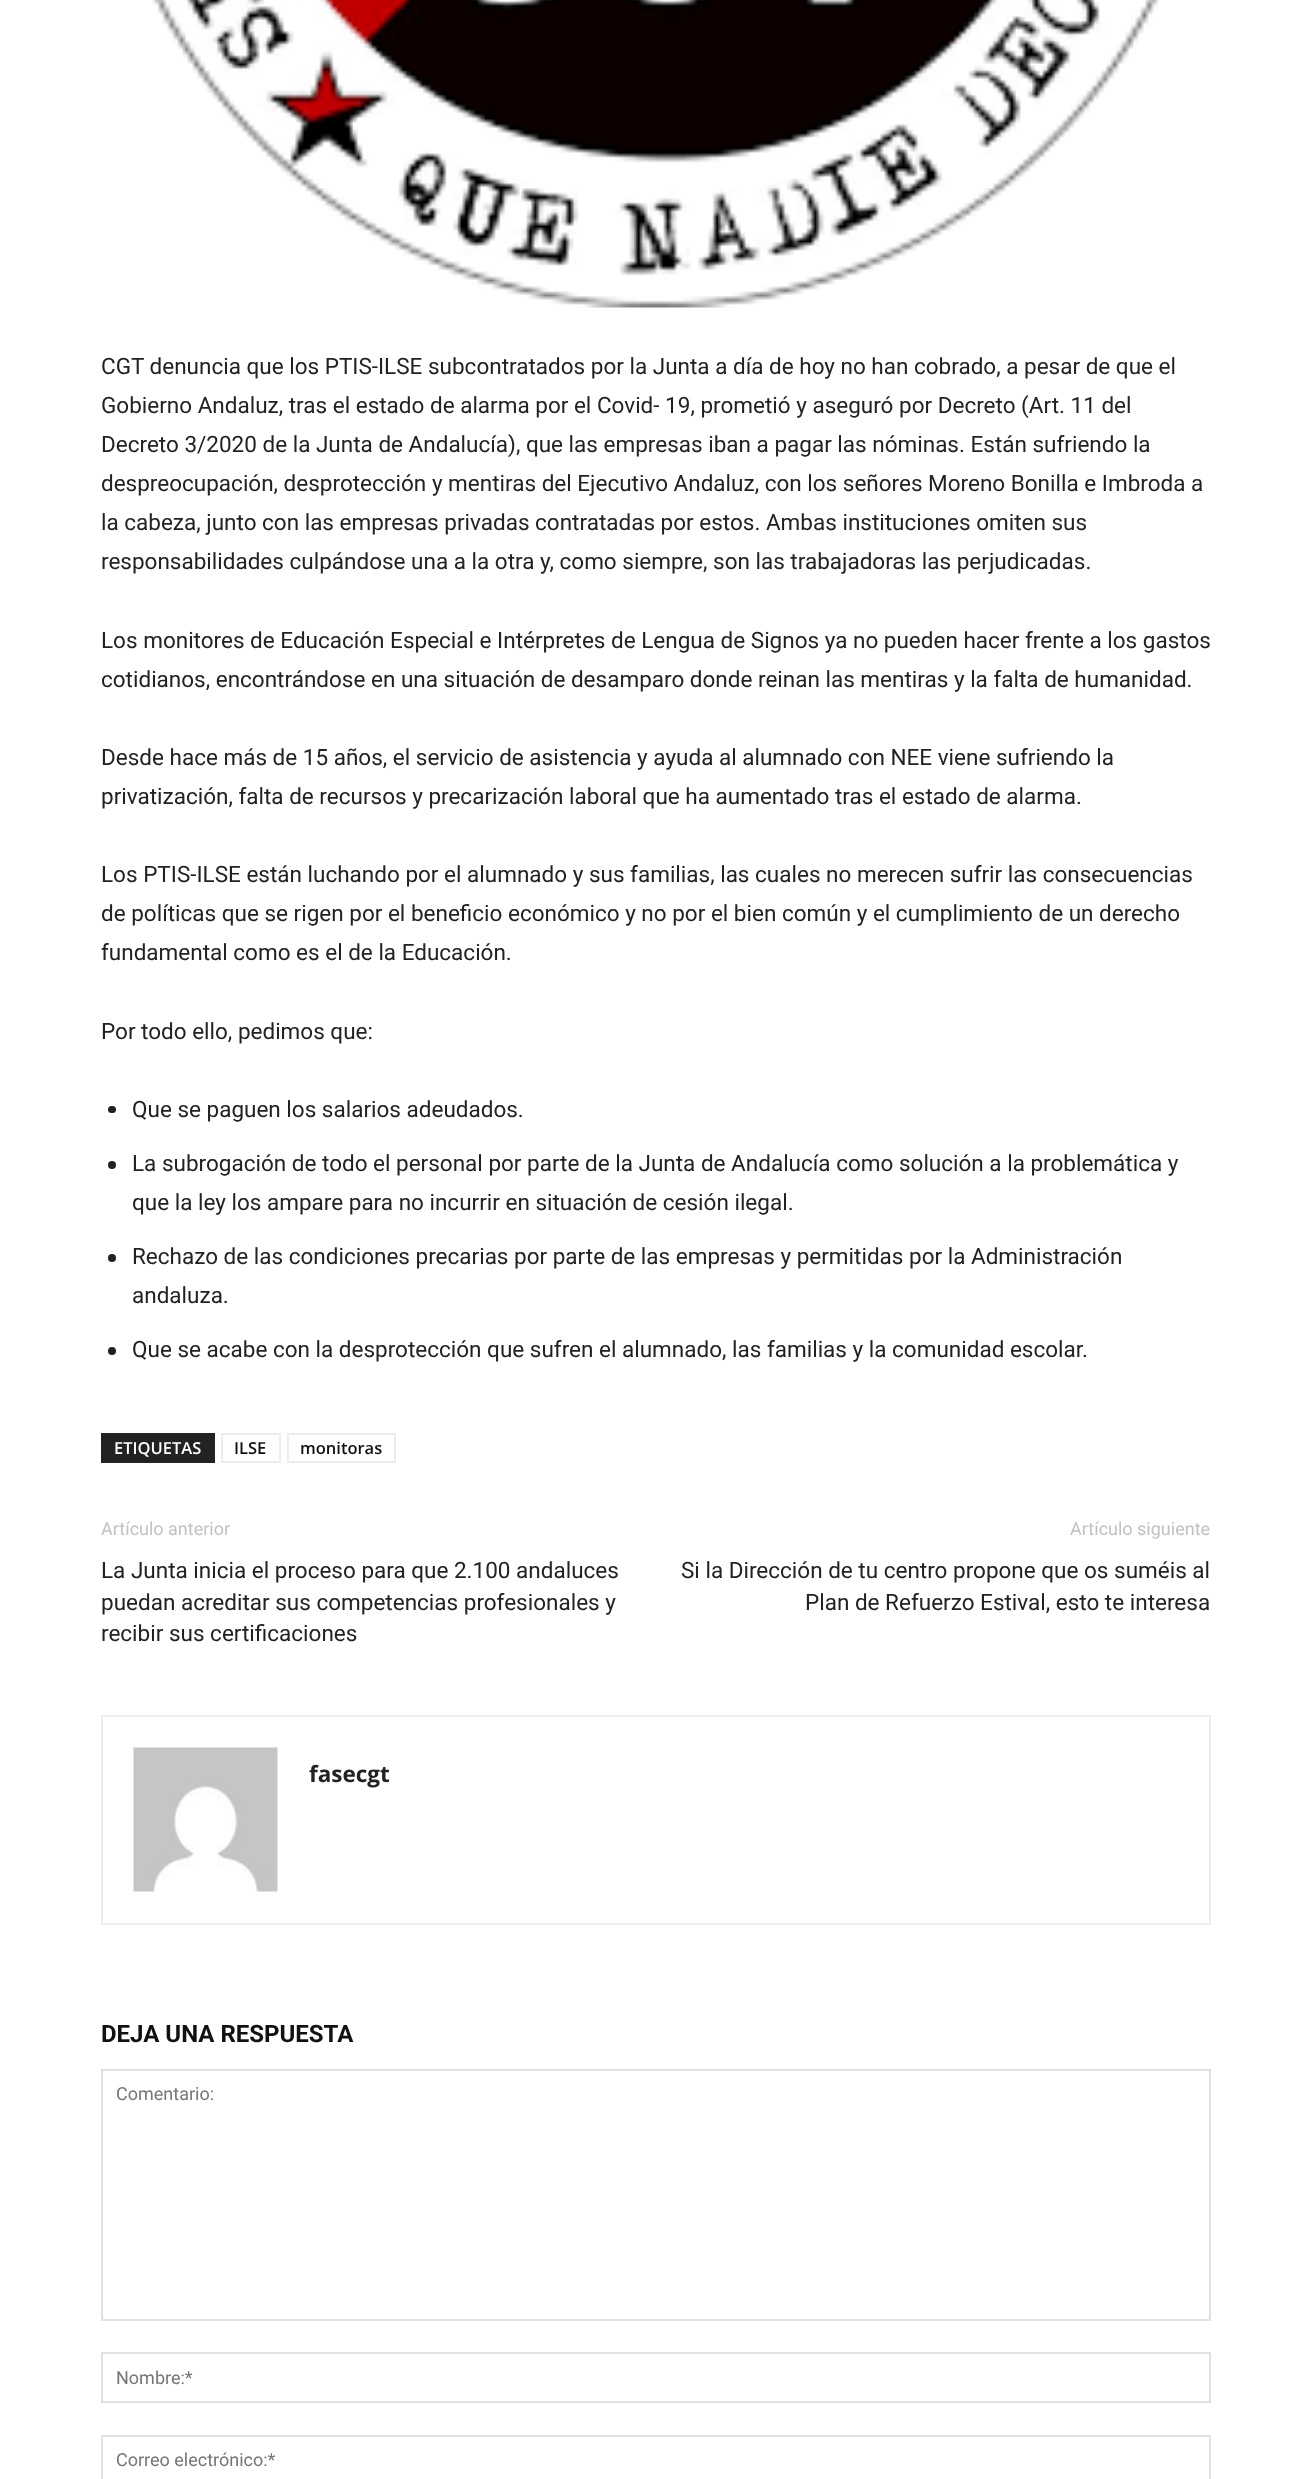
async function draw(canvas) {
  canvas.width = 1311;
  canvas.height = 2479;
  const ctx = canvas.getContext('2d');
  ctx.miterLimit = 4;
  ctx.fontKerning = 'normal';
  function label(s, x, y, font, color) {
    ctx.font = font;
    ctx.fillStyle = color;
    ctx.fillText(s, x, y);
  }
  function rect(x, y, w, h, color) {
    ctx.fillStyle = color;
    ctx.fillRect(x, y, w, h);
  }
  function roundedRect(x, y, w, h, r, color) {
    ctx.fillStyle = color;
    ctx.beginPath();
    ctx.roundRect(x, y, w, h, r);
    ctx.fill();
  }
  async function image(src, x, y, w, h) {
    const img = new Image();
    img.src = src;
    await img.decode();
    ctx.drawImage(img, x, y, w, h);
  }

  rect(0, 0, 1311, 2479, '#fff');
  await image('assets/img1.png', 152, 0, 1007, 308);
  label('CGT denuncia que los PTIS-ILSE subcontratados por la Junta a día de hoy no han cobrado, a pesar de que el', 101, 374, '22.5px Roboto', '#222');
  label('Gobierno Andaluz, tras el estado de alarma por el Covid- 19, prometió y aseguró por Decreto (Art. 11 del', 101, 413, '22.5px Roboto', '#222');
  label('Decreto 3/2020 de la Junta de Andalucía), que las empresas iban a pagar las nóminas. Están sufriendo la', 101, 452, '22.5px Roboto', '#222');
  label('despreocupación, desprotección y mentiras del Ejecutivo Andaluz, con los señores Moreno Bonilla e Imbroda a', 101, 491, '22.5px Roboto', '#222');
  label('la cabeza, junto con las empresas privadas contratadas por estos. Ambas instituciones omiten sus', 101, 530, '22.5px Roboto', '#222');
  label('responsabilidades culpándose una a la otra y, como siempre, son las trabajadoras las perjudicadas.', 101, 569, '22.5px Roboto', '#222');
  label('Los monitores de Educación Especial e Intérpretes de Lengua de Signos ya no pueden hacer frente a los gastos', 101, 648, '22.5px Roboto', '#222');
  label('cotidianos, encontrándose en una situación de desamparo donde reinan las mentiras y la falta de humanidad.', 101, 687, '22.5px Roboto', '#222');
  label('Desde hace más de 15 años, el servicio de asistencia y ayuda al alumnado con NEE viene sufriendo la', 101, 765, '22.5px Roboto', '#222');
  label('privatización, falta de recursos y precarización laboral que ha aumentado tras el estado de alarma.', 101, 804, '22.5px Roboto', '#222');
  label('Los PTIS-ILSE están luchando por el alumnado y sus familias, las cuales no merecen sufrir las consecuencias', 101, 882, '22.5px Roboto', '#222');
  label('de políticas que se rigen por el beneficio económico y no por el bien común y el cumplimiento de un derecho', 101, 921, '22.5px Roboto', '#222');
  label('fundamental como es el de la Educación.', 101, 960, '22.5px Roboto', '#222');
  label('Por todo ello, pedimos que:', 101, 1039, '22.5px Roboto', '#222');
  roundedRect(108, 1106, 8, 7, 3.5, '#222');
  label('Que se paguen los salarios adeudados.', 132, 1117, '22.5px Roboto', '#222');
  ctx.beginPath();
  ctx.arc(112, 1165, 4, 0, 2 * Math.PI);
  ctx.fill();
  label('La subrogación de todo el personal por parte de la Junta de Andalucía como solución a la problemática y', 132, 1171, '22.5px Roboto', '#222');
  label('que la ley los ampare para no incurrir en situación de cesión ilegal.', 132, 1210, '22.5px Roboto', '#222');
  ctx.beginPath();
  ctx.arc(112, 1258, 4, 0, 2 * Math.PI);
  ctx.fill();
  label('Rechazo de las condiciones precarias por parte de las empresas y permitidas por la Administración', 132, 1264, '22.5px Roboto', '#222');
  label('andaluza.', 132, 1303, '22.5px Roboto', '#222');
  ctx.beginPath();
  ctx.arc(112, 1351, 4, 0, 2 * Math.PI);
  ctx.fill();
  label('Que se acabe con la desprotección que sufren el alumnado, las familias y la comunidad escolar.', 132, 1357, '22.5px Roboto', '#222');
  rect(101, 1433, 114, 30, '#222');
  label('ETIQUETAS', 114, 1454, '600 16.5px Open Sans', '#fff');
  ctx.strokeStyle = '#ededed';
  ctx.lineWidth = 2;
  ctx.strokeRect(222, 1434, 58, 28);
  label('ILSE', 234, 1454, '600 16.5px Open Sans', '#111');
  ctx.strokeRect(288, 1434, 107, 28);
  label('monitoras', 300, 1454, '600 16.5px Open Sans', '#111');
  label('Artículo anterior', 101, 1535, '18px Roboto', '#c1c1c1');
  label('La Junta inicia el proceso para que 2.100 andaluces', 101, 1578, '22.5px Roboto', '#222');
  label('puedan acreditar sus competencias profesionales y', 101, 1610, '22.5px Roboto', '#222');
  label('recibir sus certificaciones', 101, 1641, '22.5px Roboto', '#222');
  label('Artículo siguiente', 1070, 1535, '18px Roboto', '#c1c1c1');
  label('Si la Dirección de tu centro propone que os suméis al', 681, 1578, '22.5px Roboto', '#222');
  label('Plan de Refuerzo Estival, esto te interesa', 805, 1610, '22.5px Roboto', '#222');
  ctx.strokeRect(102, 1716, 1108, 208);
  await image('assets/img2.png', 133, 1747, 145, 145);
  label('fasecgt', 309, 1782, 'bold 22.5px Open Sans', '#222');
  label('DEJA UNA RESPUESTA', 101, 2042, 'bold 24px Roboto', '#111');
  ctx.strokeStyle = '#e1e1e1';
  ctx.strokeRect(102, 2070, 1108, 250);
  label('Comentario:', 116, 2100, '18px Roboto', '#757575');
  ctx.strokeRect(102, 2353, 1108, 49);
  label('Nombre:*', 116, 2384, '18px Roboto', '#757575');
  ctx.strokeRect(102, 2436, 1108, 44);
  label('Correo electrónico:*', 116, 2466, '18px Roboto', '#757575');
}

draw(document.querySelector('canvas'));
